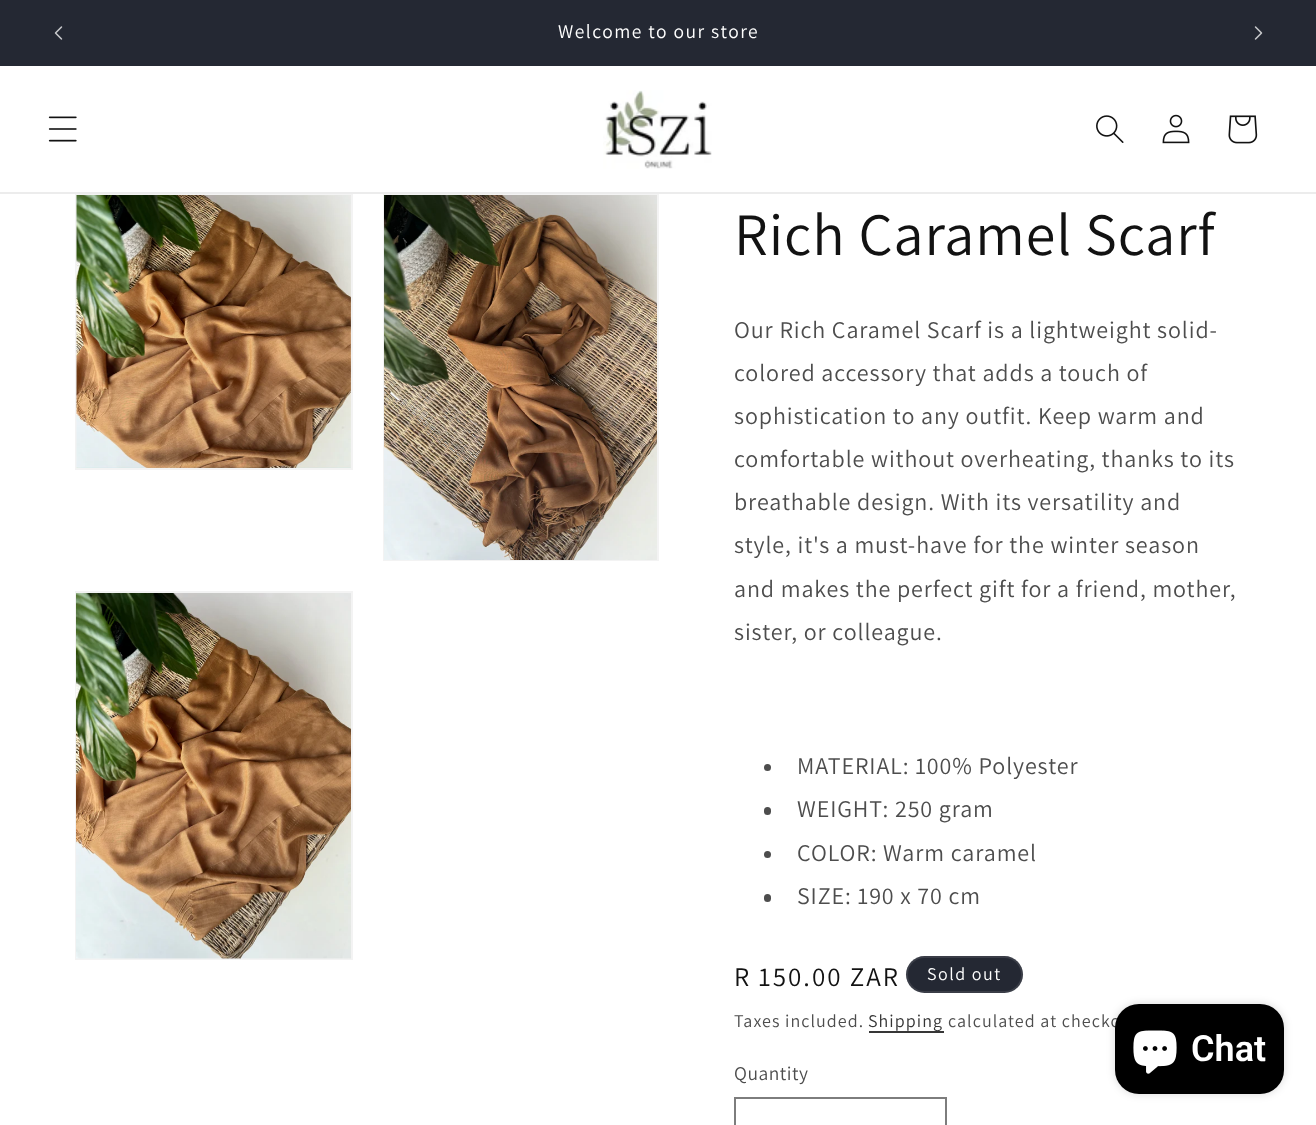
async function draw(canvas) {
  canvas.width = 1316;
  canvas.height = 1125;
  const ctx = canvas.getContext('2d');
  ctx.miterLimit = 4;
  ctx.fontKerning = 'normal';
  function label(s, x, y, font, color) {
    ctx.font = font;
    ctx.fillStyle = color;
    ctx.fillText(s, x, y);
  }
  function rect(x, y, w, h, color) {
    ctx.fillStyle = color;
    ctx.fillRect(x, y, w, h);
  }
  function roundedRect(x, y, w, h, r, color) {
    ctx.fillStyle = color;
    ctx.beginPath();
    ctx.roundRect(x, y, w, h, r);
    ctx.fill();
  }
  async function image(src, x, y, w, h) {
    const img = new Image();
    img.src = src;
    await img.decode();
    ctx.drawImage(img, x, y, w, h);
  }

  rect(0, 0, 1316, 1125, '#fff');
  rect(0, 0, 1316, 66, '#242833');
  await image('assets/img1.png', 54, 26, 9, 14);
  ctx.letterSpacing = '1.5px';
  label('Welcome to our store', 558, 38, '19.5px Assistant', '#fff');
  await image('assets/img2.png', 1254, 26, 9, 14);
  rect(0, 192, 1316, 2, '#ececec');
  await image('assets/img3.png', 48, 116, 29, 26);
  await image('assets/img4.png', 603, 90, 109, 79);
  await image('assets/img5.png', 1096, 115, 28, 28);
  await image('assets/img6.png', 1162, 114, 28, 30);
  await image('assets/img7.png', 1228, 115, 30, 29);
  ctx.strokeStyle = '#f3f3f3';
  ctx.lineWidth = 2;
  ctx.strokeRect(76, 195, 276, 274);
  await image('assets/img8.png', 76, 195, 275, 273);
  ctx.strokeRect(384, 195, 274, 365);
  await image('assets/img9.png', 384, 195, 273, 365);
  ctx.strokeRect(76, 592, 276, 367);
  await image('assets/img10.png', 76, 593, 275, 366);
  ctx.letterSpacing = '0.9px';
  label('Rich Caramel Scarf', 734, 255, '60px Assistant', '#121212');
  label('Our Rich Caramel Scarf is a lightweight solid-', 734, 338, '24px Assistant', '#4d4d4d');
  label('colored accessory that adds a touch of', 734, 381, '24px Assistant', '#4d4d4d');
  label('sophistication to any outfit. Keep warm and', 734, 424, '24px Assistant', '#4d4d4d');
  label('comfortable without overheating, thanks to its', 734, 467, '24px Assistant', '#4d4d4d');
  label('breathable design. With its versatility and', 734, 510, '24px Assistant', '#4d4d4d');
  label('style, it\'s a must-have for the winter season', 734, 553, '24px Assistant', '#4d4d4d');
  label('and makes the perfect gift for a friend, mother,', 734, 597, '24px Assistant', '#4d4d4d');
  label('sister, or colleague.', 734, 640, '24px Assistant', '#4d4d4d');
  ctx.beginPath();
  ctx.arc(767.5, 767.5, 3.5, 0, 2 * Math.PI);
  ctx.fill();
  label('MATERIAL: 100% Polyester', 797, 774, '24px Assistant', '#4d4d4d');
  roundedRect(764, 807, 7, 8, 3.5, '#4d4d4d');
  label('WEIGHT: 250 gram', 797, 817, '24px Assistant', '#4d4d4d');
  ctx.beginPath();
  ctx.arc(767.5, 854.5, 3.5, 0, 2 * Math.PI);
  ctx.fill();
  label('COLOR: Warm caramel', 797, 861, '24px Assistant', '#4d4d4d');
  roundedRect(764, 894, 7, 8, 3.5, '#4d4d4d');
  label('SIZE: 190 x 70 cm', 797, 904, '24px Assistant', '#4d4d4d');
  ctx.letterSpacing = '2px';
  label('R 150.00 ZAR', 734, 986, '27px Assistant', '#121212');
  roundedRect(906, 956, 117, 37, 18.5, '#242833');
  ctx.beginPath();
  ctx.roundRect(907, 957, 115, 35, 17.5);
  ctx.strokeStyle = '#ffffff1a';
  ctx.stroke();
  ctx.letterSpacing = '1.5px';
  label('Sold out', 927, 980, '18px Assistant', '#fff');
  ctx.letterSpacing = '1.05px';
  label('Taxes included.', 734, 1027, '18px Assistant', '#4d4d4d');
  rect(869, 1031, 75, 2, '#363636');
  label('Shipping', 868, 1027, '18px Assistant', '#353535');
  label('calculated at checko', 948, 1027, '18px Assistant', '#4d4d4d');
  ctx.letterSpacing = '0.5px';
  label('Quantity', 734, 1080, '19.5px Assistant', '#4d4d4d');
  ctx.strokeStyle = '#7d7d7d';
  ctx.strokeRect(735, 1098, 211, 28);
  ctx.fillStyle = '#00000026';
  ctx.filter = 'blur(4px)';
  ctx.beginPath();
  ctx.roundRect(1115, 1004, 169, 90, 24);
  ctx.fill();
  ctx.filter = 'none';
  roundedRect(1115, 1004, 169, 90, 24, '#000');
  await image('assets/img11.png', 1133, 1030, 44, 44);
  ctx.letterSpacing = '0px';
  label('Chat', 1191, 1061, '600 36px Roboto', '#fff');
}

draw(document.querySelector('canvas'));
